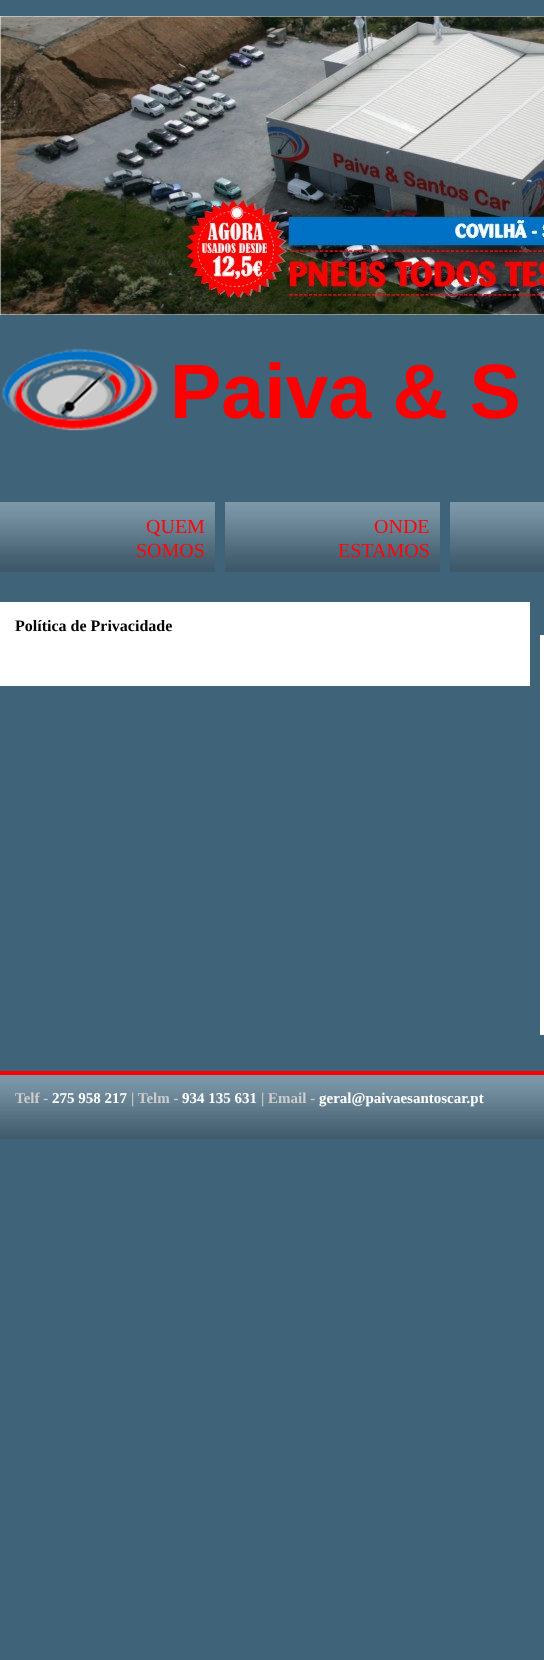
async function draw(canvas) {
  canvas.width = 544;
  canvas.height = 1660;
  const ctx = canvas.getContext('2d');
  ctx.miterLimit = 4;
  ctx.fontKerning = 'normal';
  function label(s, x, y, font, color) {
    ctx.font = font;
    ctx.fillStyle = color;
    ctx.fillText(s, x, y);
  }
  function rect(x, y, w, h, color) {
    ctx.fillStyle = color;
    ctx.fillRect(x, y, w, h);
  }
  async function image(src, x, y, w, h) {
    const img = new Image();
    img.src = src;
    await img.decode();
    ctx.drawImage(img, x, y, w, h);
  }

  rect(0, 0, 544, 1660, '#3f6379');
  await image('assets/img1.png', 0, 16, 544, 299);
  await image('assets/img2.png', 2, 348, 157, 83);
  label('Paiva & S', 170, 418, 'bold 77px Liberation Sans', '#f00');
  await image('assets/img3.png', 0, 502, 215, 70);
  label('QUEM', 146, 533, '20px Liberation Serif', '#ff0606');
  label('SOMOS', 136, 557, '20px Liberation Serif', '#ff0606');
  await image('assets/img3.png', 225, 502, 215, 70);
  label('ONDE', 374, 533, '20px Liberation Serif', '#ff0606');
  label('ESTAMOS', 338, 557, '20px Liberation Serif', '#ff0606');
  await image('assets/img4.png', 450, 502, 94, 70);
  rect(0, 602, 530, 84, '#fff');
  label('Política de Privacidade', 15, 631, 'bold 16px Liberation Serif', '#000');
  rect(540, 635, 4, 400, '#fff');
  await image('assets/img5.png', 0, 1075, 544, 64);
  rect(0, 1071, 544, 4, '#f00');
  label('Telf -', 15, 1103, 'bold 15px Liberation Serif', '#ccc');
  label('275 958 217', 52, 1103, 'bold 15px Liberation Serif', '#fff');
  label('| Telm -', 131, 1103, 'bold 15px Liberation Serif', '#ccc');
  label('934 135 631', 182, 1103, 'bold 15px Liberation Serif', '#fff');
  label('| Email -', 261, 1103, 'bold 15px Liberation Serif', '#ccc');
  label('geral@paivaesantoscar.pt', 319, 1103, 'bold 15px Liberation Serif', '#fff');
}

draw(document.querySelector('canvas'));
